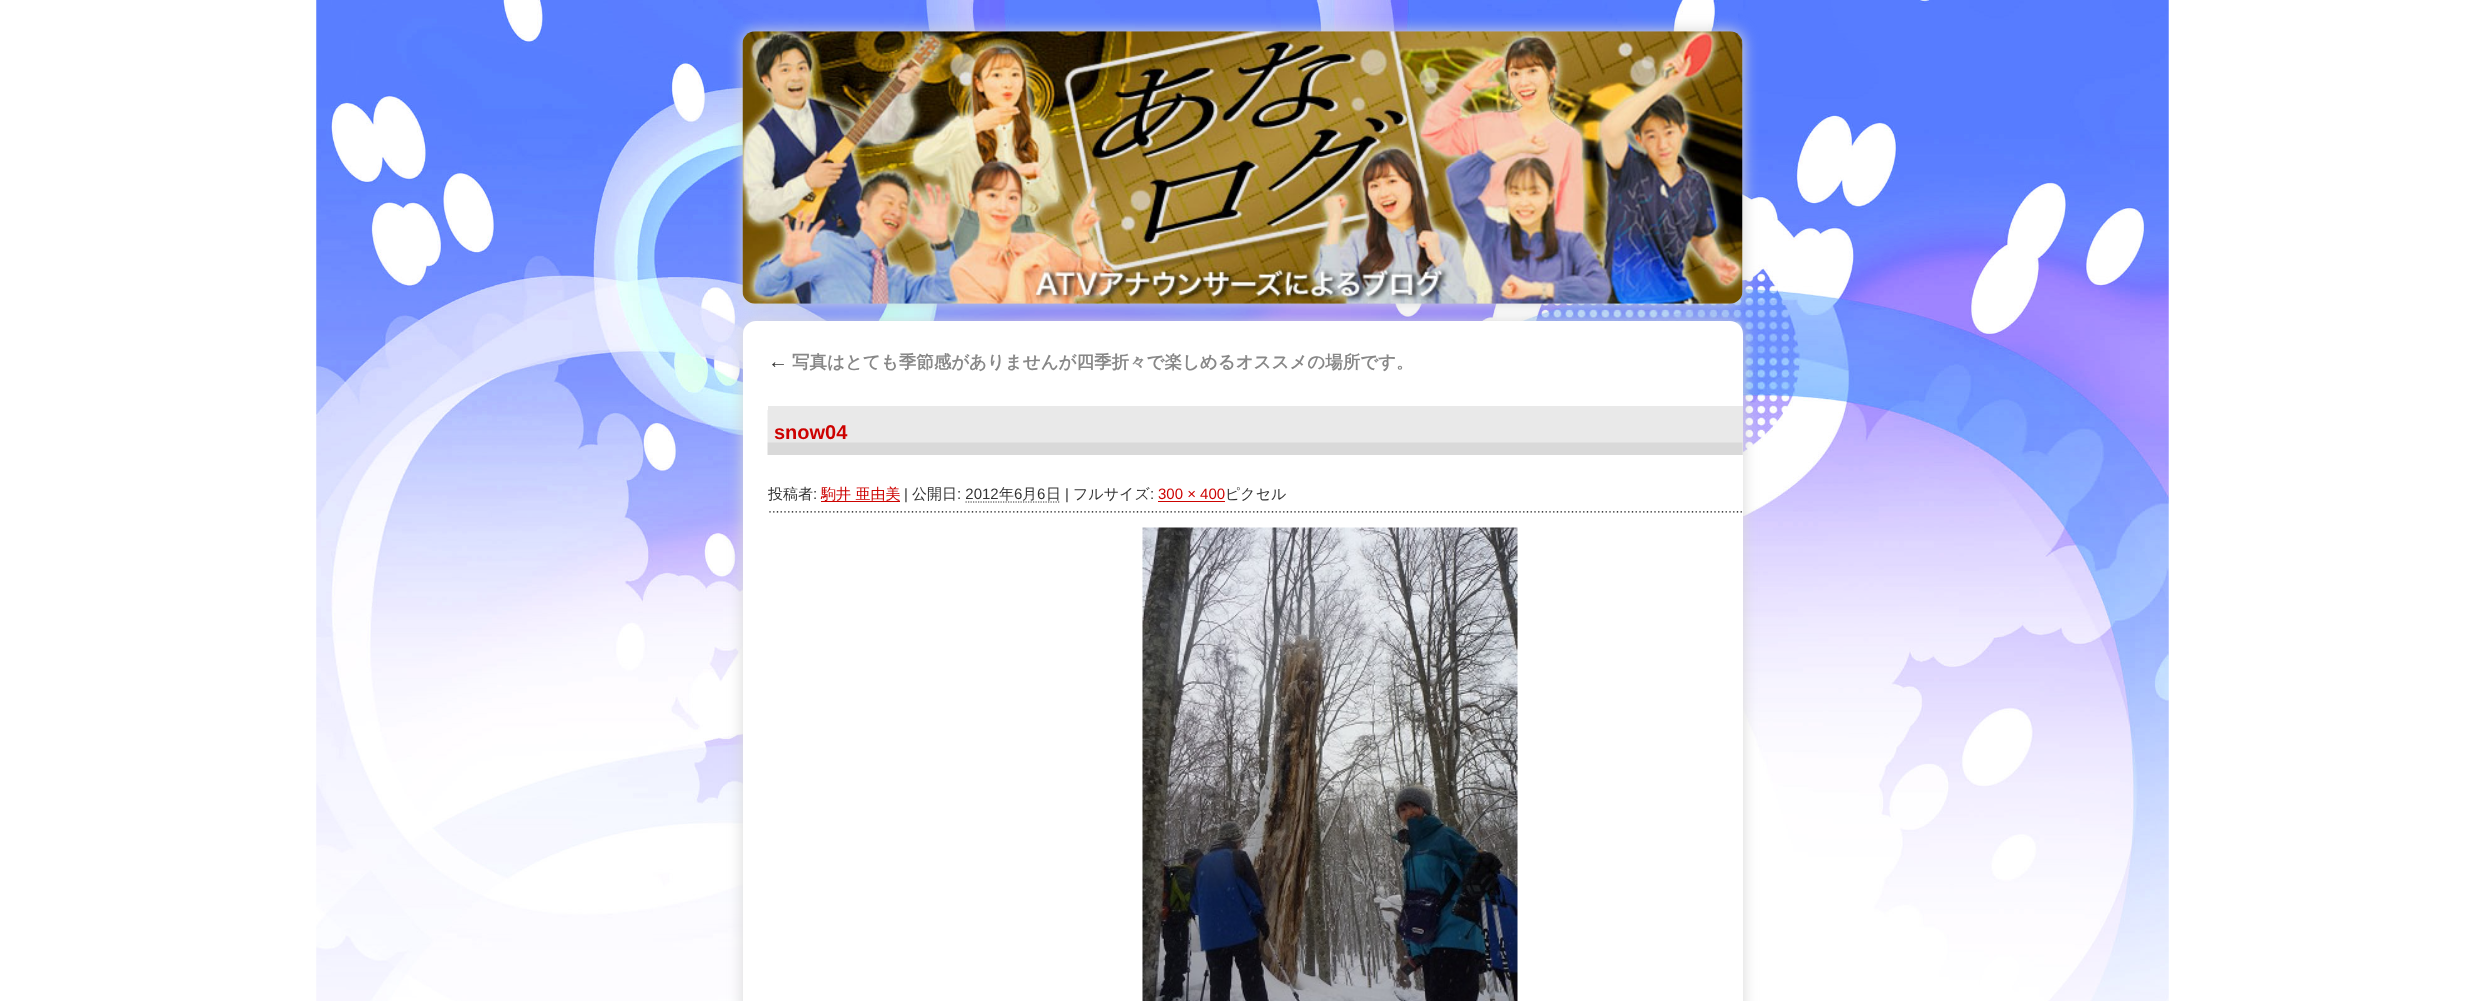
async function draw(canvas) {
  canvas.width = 2484;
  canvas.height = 1001;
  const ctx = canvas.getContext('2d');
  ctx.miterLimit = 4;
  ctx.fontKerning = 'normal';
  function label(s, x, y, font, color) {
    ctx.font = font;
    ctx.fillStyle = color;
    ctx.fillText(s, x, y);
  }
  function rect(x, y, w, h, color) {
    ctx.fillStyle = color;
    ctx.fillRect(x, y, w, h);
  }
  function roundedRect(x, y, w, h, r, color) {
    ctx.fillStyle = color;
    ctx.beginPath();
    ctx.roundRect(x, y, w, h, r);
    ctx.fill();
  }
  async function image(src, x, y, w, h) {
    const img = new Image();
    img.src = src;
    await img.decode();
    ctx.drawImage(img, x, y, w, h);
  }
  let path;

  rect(0, 0, 2484, 1001, '#fff');
  await image('assets/img1.png', 316, 0, 1853, 1001);
  ctx.fillStyle = '#d8d8d8';
  ctx.filter = 'blur(7.5px)';
  ctx.beginPath();
  ctx.roundRect(743, 321, 1000, 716, 13);
  ctx.fill();
  ctx.filter = 'none';
  roundedRect(743, 321, 1000, 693, 13, '#fff');
  ctx.fillStyle = '#d8d8d8';
  ctx.filter = 'blur(7.5px)';
  ctx.beginPath();
  ctx.roundRect(743, 31, 1000, 273, 13);
  ctx.fill();
  ctx.filter = 'none';
  await image('assets/img2.png', 742, 31, 1001, 273);
  label('←', 768, 368, '20px Liberation Sans', '#333');
  label('写真はとても季節感がありませんが四季折々で楽しめるオススメの場所です。', 792, 368, 'bold 17.5px WenQuanYi Zen Hei', '#888');
  rect(768, 406, 975, 49, '#e9e9e9');
  await image('assets/img3.png', 767, 410, 976, 45);
  label('snow04', 774, 439, 'bold 20px Liberation Sans', '#cd0200');
  await image('assets/img4.png', 769, 511, 973, 2);
  label('投稿者', 768, 499, '500 15px WenQuanYi Zen Hei', '#333');
  label(':', 813, 499, '15px Liberation Sans', '#333');
  label('駒井 亜由美', 821, 499, '500 15px WenQuanYi Zen Hei', '#cd0200');
  rect(821, 501, 79, 1, '#cd0200');
  label('|', 904, 499, '15px Liberation Sans', '#333');
  label('公開日', 912, 499, '500 15px WenQuanYi Zen Hei', '#333');
  label(': 2012', 957, 499, '15px Liberation Sans', '#333');
  label('年', 999, 499, '500 15px WenQuanYi Zen Hei', '#333');
  label('6', 1014, 499, '15px Liberation Sans', '#333');
  path = new Path2D('M965.5 502H1060.5');
  ctx.strokeStyle = '#333';
  ctx.lineWidth = 1.2;
  ctx.setLineDash([1.25, 1.25]);
  ctx.stroke(path);
  label('月', 1022, 499, '500 15px WenQuanYi Zen Hei', '#333');
  label('6', 1037, 499, '15px Liberation Sans', '#333');
  label('日', 1046, 499, '500 15px WenQuanYi Zen Hei', '#333');
  label('|', 1065, 499, '15px Liberation Sans', '#333');
  label('フルサイズ', 1073, 499, '500 15px WenQuanYi Zen Hei', '#333');
  label(':', 1150, 499, '15px Liberation Sans', '#333');
  label('300 × 400', 1158, 499, '15px Liberation Sans', '#cd0200');
  rect(1158, 501, 67, 1, '#cd0200');
  label('ピクセル', 1225, 499, '500 15px WenQuanYi Zen Hei', '#333');
  await image('assets/img5.png', 1142, 527, 376, 474);
}

draw(document.querySelector('canvas'));
